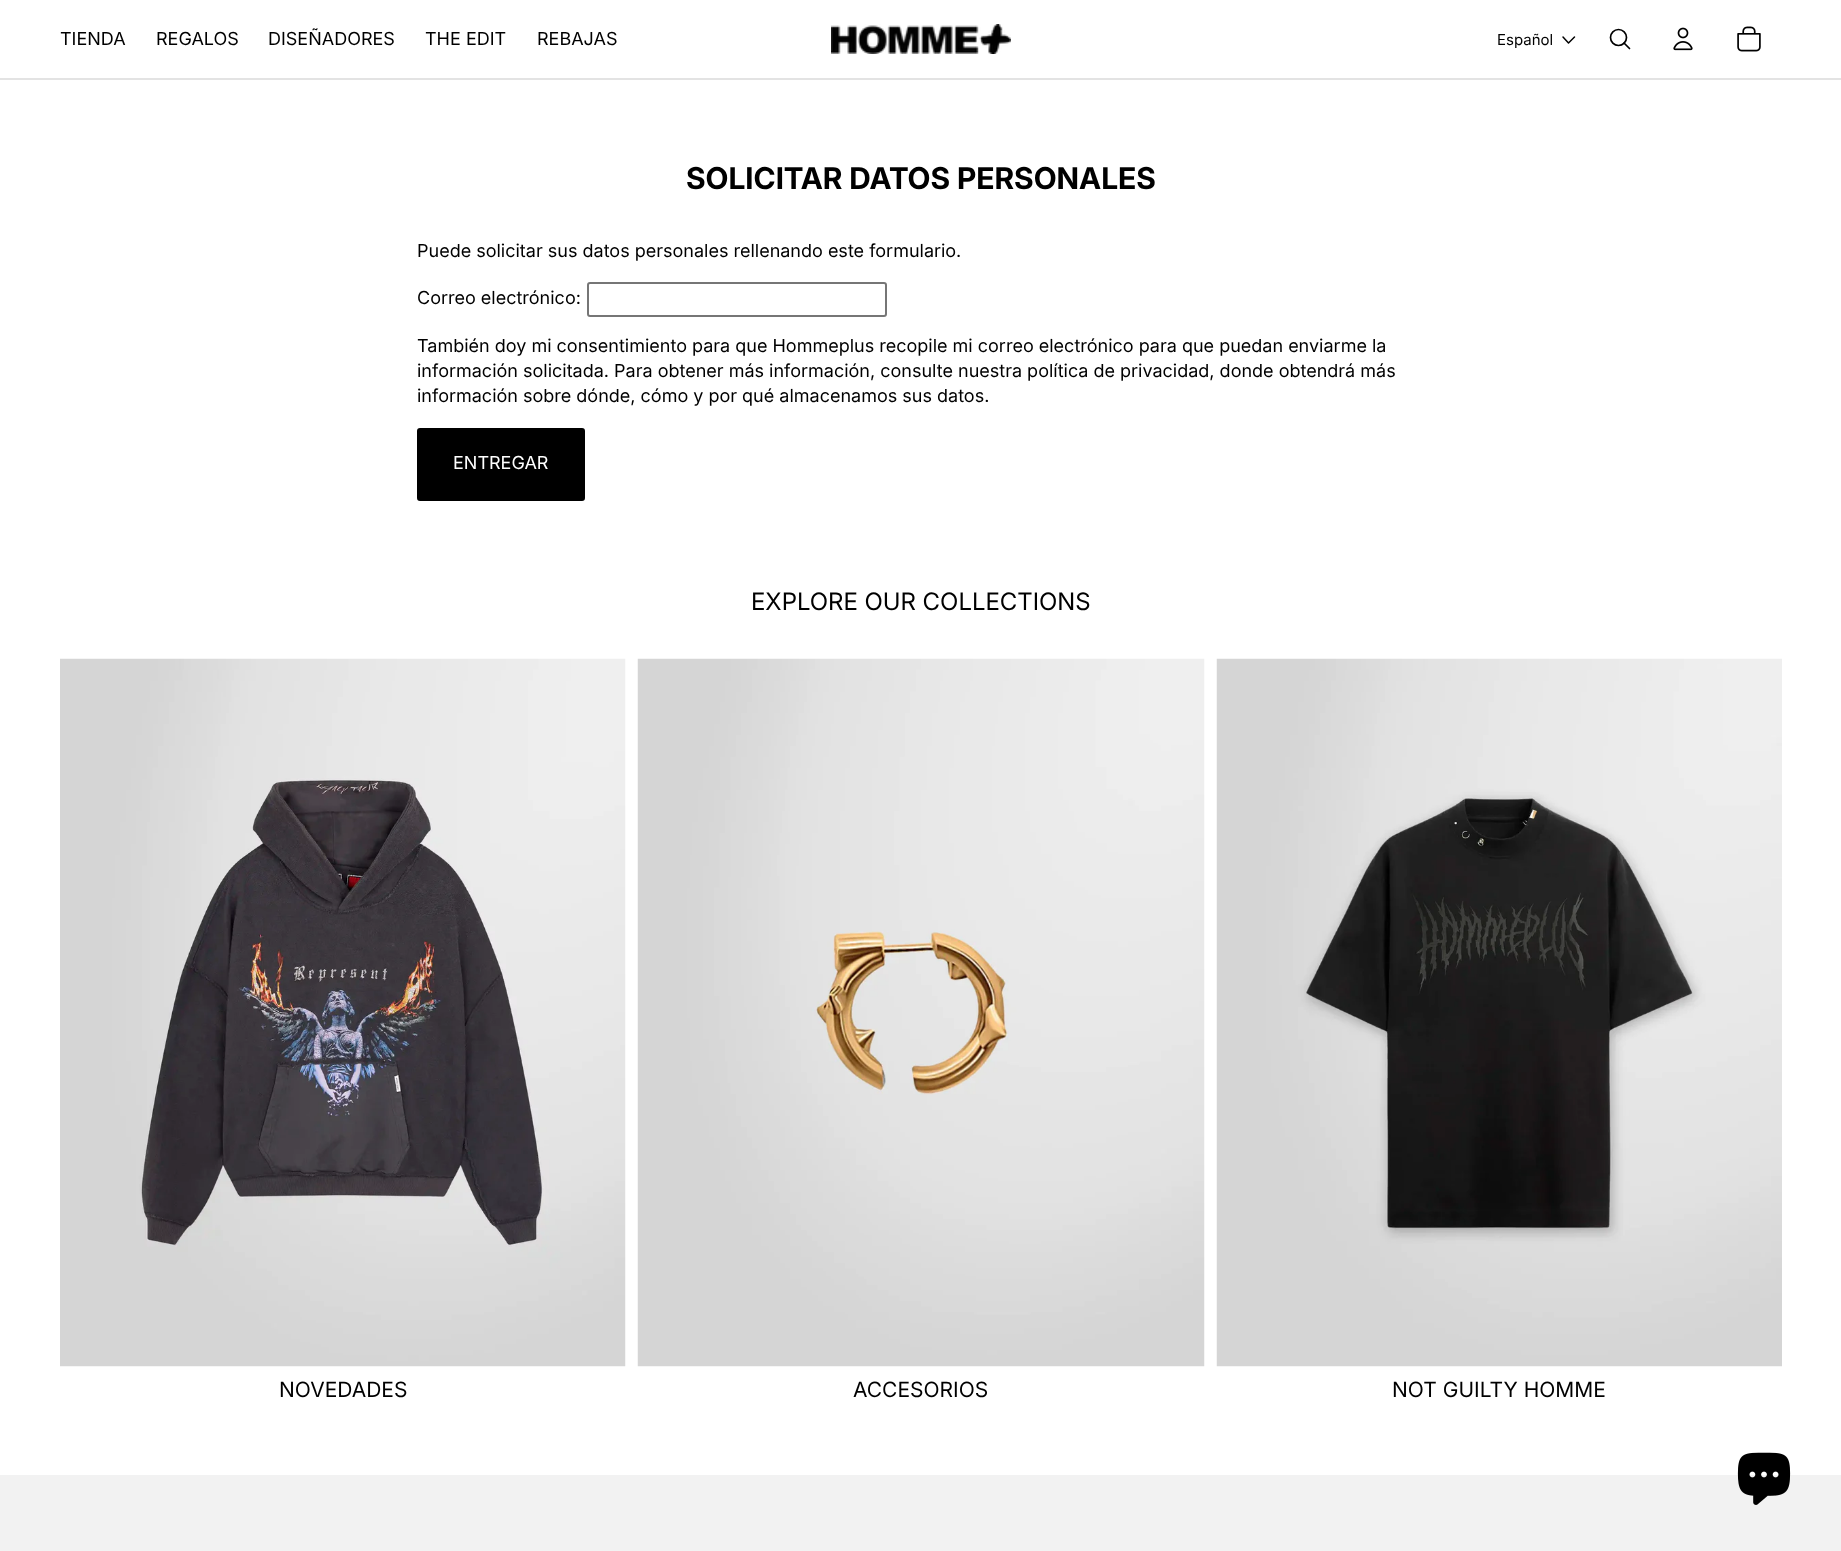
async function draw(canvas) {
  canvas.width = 1841;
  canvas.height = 1551;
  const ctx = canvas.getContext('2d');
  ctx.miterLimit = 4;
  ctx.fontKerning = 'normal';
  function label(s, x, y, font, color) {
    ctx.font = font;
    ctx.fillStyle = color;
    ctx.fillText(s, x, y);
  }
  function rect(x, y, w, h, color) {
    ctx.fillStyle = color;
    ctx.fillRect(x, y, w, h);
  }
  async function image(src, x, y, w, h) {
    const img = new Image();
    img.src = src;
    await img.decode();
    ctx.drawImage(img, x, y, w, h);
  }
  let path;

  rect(0, 0, 1841, 1551, '#fff');
  rect(0, 78, 1841, 2, '#e3e3e3');
  label('TIENDA', 60, 45, '18px Inter', '#000');
  label('REGALOS', 156, 45, '18px Inter', '#000');
  label('DISEÑADORES', 268, 45, '18px Inter', '#000');
  label('THE EDIT', 425, 45, '18px Inter', '#000');
  label('REBAJAS', 537, 45, '18px Inter', '#000');
  await image('assets/img1.png', 831, 24, 180, 30);
  label('Español', 1497, 45, '15px Inter', '#000');
  path = new Path2D('M1574.5 37L1568.5 43L1563 37');
  ctx.strokeStyle = '#000';
  ctx.lineWidth = 1.5;
  ctx.lineCap = 'round';
  ctx.lineJoin = 'round';
  ctx.stroke(path);
  ctx.beginPath();
  ctx.arc(1618.5, 37.5, 8, 0, 2 * Math.PI);
  ctx.lineWidth = 1.7;
  ctx.stroke();
  path = new Path2D('M1624 43L1629.5 48.5');
  ctx.stroke(path);
  await image('assets/img2.png', 1673, 27, 20, 24);
  await image('assets/img3.png', 1737, 26, 24, 26);
  label('SOLICITAR DATOS PERSONALES', 686, 189, 'bold 30px Inter', '#000');
  label('Puede solicitar sus datos personales rellenando este formulario.', 417, 257, '18px Inter', '#000');
  label('Correo electrónico:', 417, 304, '18px Inter', '#000');
  ctx.beginPath();
  ctx.roundRect(588, 283, 298, 33, 2);
  ctx.strokeStyle = '#767676';
  ctx.lineWidth = 2;
  ctx.lineJoin = 'miter';
  ctx.stroke();
  label('También doy mi consentimiento para que Hommeplus recopile mi correo electrónico para que puedan enviarme la', 417, 352, '18px Inter', '#000');
  label('información solicitada. Para obtener más información, consulte nuestra política de privacidad, donde obtendrá más', 417, 377, '18px Inter', '#000');
  label('información sobre dónde, cómo y por qué almacenamos sus datos.', 417, 402, '18px Inter', '#000');
  ctx.beginPath();
  ctx.roundRect(418, 429, 166, 71, 2);
  ctx.fill();
  ctx.strokeStyle = '#000';
  ctx.stroke();
  label('ENTREGAR', 453, 469, '18px Inter', '#fff');
  label('EXPLORE OUR COLLECTIONS', 751, 610, '24px "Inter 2"', '#000');
  await image('assets/img4.png', 60, 658, 566, 709);
  label('NOVEDADES', 279, 1397, '21px Inter', '#000');
  await image('assets/img5.png', 637, 658, 568, 709);
  label('ACCESORIOS', 853, 1397, '21px Inter', '#000');
  await image('assets/img6.png', 1216, 658, 566, 709);
  label('NOT GUILTY HOMME', 1392, 1397, '21px Inter', '#000');
  rect(0, 1475, 1841, 76, '#f2f2f2');
  await image('assets/img7.png', 1737, 1452, 54, 53);
}

draw(document.querySelector('canvas'));
